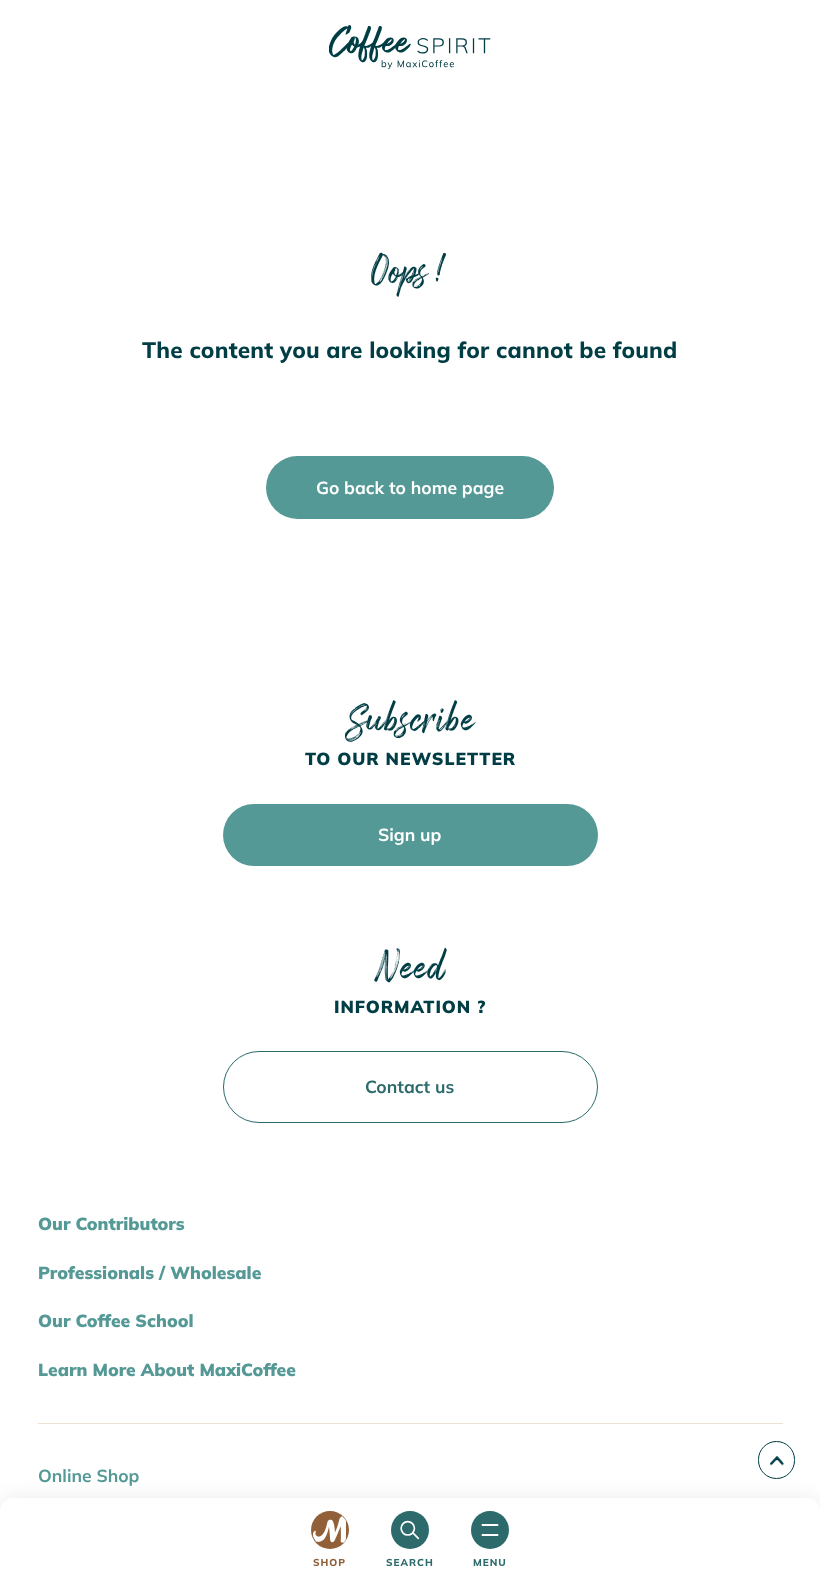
async function draw(canvas) {
  canvas.width = 820;
  canvas.height = 1578;
  const ctx = canvas.getContext('2d');
  ctx.miterLimit = 4;
  ctx.fontKerning = 'normal';
  function label(s, x, y, font, color) {
    ctx.font = font;
    ctx.fillStyle = color;
    ctx.fillText(s, x, y);
  }
  function rect(x, y, w, h, color) {
    ctx.fillStyle = color;
    ctx.fillRect(x, y, w, h);
  }
  function roundedRect(x, y, w, h, r, color) {
    ctx.fillStyle = color;
    ctx.beginPath();
    ctx.roundRect(x, y, w, h, r);
    ctx.fill();
  }
  async function image(src, x, y, w, h) {
    const img = new Image();
    img.src = src;
    await img.decode();
    ctx.drawImage(img, x, y, w, h);
  }
  let path;

  rect(0, 0, 820, 1578, '#fff');
  await image('assets/img1.png', 329, 25, 162, 45);
  label('Oops !', 371, 281, '35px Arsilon', '#003d44');
  ctx.letterSpacing = '0.2px';
  label('The content you are looking for cannot be found', 142, 358, '800 22.5px Mulish', '#003d44');
  roundedRect(266, 456, 288, 63, 31.5, '#559996');
  ctx.letterSpacing = '0px';
  label('Go back to home page', 316, 494, 'bold 17.5px Mulish', '#fff');
  ctx.letterSpacing = '0.75px';
  label('Subscribe', 345, 730, '37.5px Arsilon', '#003d44');
  ctx.letterSpacing = '0.9px';
  label('TO OUR NEWSLETTER', 305, 765, '900 17.5px Mulish', '#003d44');
  roundedRect(223, 804, 375, 62, 31, '#559996');
  ctx.letterSpacing = '0px';
  label('Sign up', 378, 841, 'bold 17.5px Mulish', '#fff');
  ctx.letterSpacing = '0.75px';
  label('Need', 374, 978, '37.5px Arsilon', '#003d44');
  ctx.letterSpacing = '0.9px';
  label('INFORMATION ?', 334, 1013, '900 17.5px Mulish', '#003d44');
  ctx.beginPath();
  ctx.roundRect(223.5, 1051.5, 374, 71, 35.5);
  ctx.strokeStyle = '#2c6a6c';
  ctx.stroke();
  ctx.letterSpacing = '0px';
  label('Contact us', 365, 1093, 'bold 17.5px Mulish', '#2c6a6c');
  label('Our Contributors', 38, 1230, '900 17.5px Mulish', '#559996');
  label('Professionals / Wholesale', 38, 1279, '900 17.5px Mulish', '#559996');
  label('Our Coffee School', 38, 1327, '900 17.5px Mulish', '#559996');
  label('Learn More About MaxiCoffee', 38, 1376, '900 17.5px Mulish', '#559996');
  rect(38, 1423, 745, 1, '#eee1d4');
  label('Online Shop', 38, 1482, 'bold 17.5px Mulish', '#559996');
  ctx.beginPath();
  ctx.roundRect(758.5, 1441.5, 36, 37, 18);
  ctx.strokeStyle = '#003d44';
  ctx.stroke();
  await image('assets/img2.png', 770, 1456, 14, 10);
  ctx.fillStyle = '#00000014';
  ctx.filter = 'blur(9.5px)';
  ctx.beginPath();
  ctx.roundRect(0, 1498, 820, 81, 13);
  ctx.fill();
  ctx.filter = 'none';
  ctx.fillStyle = '#fff';
  path = new Path2D('M13 1498H807C814 1498 820 1504 820 1511V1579H0V1511C0 1504 6 1498 13 1498Z');
  ctx.fill(path);
  ctx.fillStyle = '#916039';
  ctx.beginPath();
  ctx.arc(330, 1530, 19, 0, 2 * Math.PI);
  ctx.fill();
  await image('assets/img3.png', 313, 1516, 33, 27);
  ctx.letterSpacing = '1px';
  label('SHOP', 313, 1566, '800 10px Mulish', '#916039');
  ctx.fillStyle = '#2c6a6c';
  ctx.beginPath();
  ctx.arc(410, 1530, 19, 0, 2 * Math.PI);
  ctx.fill();
  await image('assets/img4.png', 400, 1520, 20, 20);
  label('SEARCH', 386, 1566, '800 10px Mulish', '#2c6a6c');
  ctx.beginPath();
  ctx.arc(490, 1530, 19, 0, 2 * Math.PI);
  ctx.fill();
  await image('assets/img5.png', 481, 1524, 18, 12);
  label('MENU', 473, 1566, '800 10px Mulish', '#2c6a6c');
}

draw(document.querySelector('canvas'));
